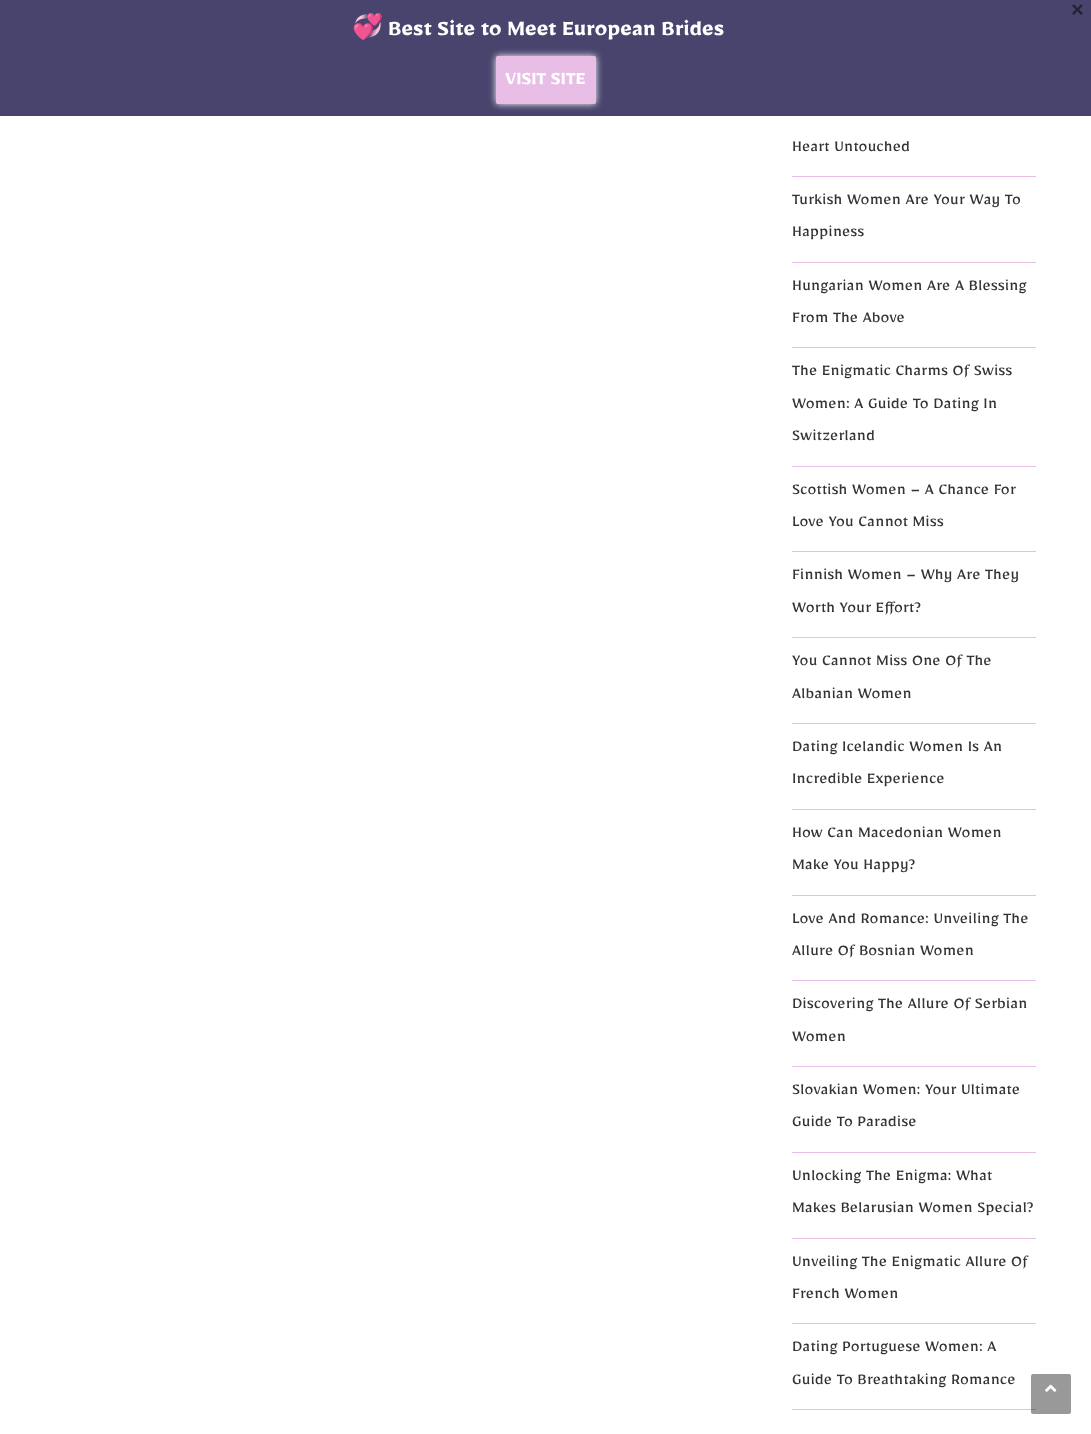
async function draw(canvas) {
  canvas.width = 1091;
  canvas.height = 1434;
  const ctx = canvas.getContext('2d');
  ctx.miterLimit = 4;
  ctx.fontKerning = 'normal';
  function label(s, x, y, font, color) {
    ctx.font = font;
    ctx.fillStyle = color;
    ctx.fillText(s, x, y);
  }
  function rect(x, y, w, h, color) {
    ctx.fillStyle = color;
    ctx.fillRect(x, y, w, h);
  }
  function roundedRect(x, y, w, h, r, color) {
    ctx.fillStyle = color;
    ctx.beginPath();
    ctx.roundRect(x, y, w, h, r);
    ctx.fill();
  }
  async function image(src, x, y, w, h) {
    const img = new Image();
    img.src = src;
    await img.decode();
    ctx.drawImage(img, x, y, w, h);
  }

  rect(0, 0, 1091, 1434, '#fff');
  rect(0, 0, 1091, 116, '#48446d');
  label('×', 1070, 17, 'bold 28px Mirza', '#242237');
  label('💞', 352, 35, 'bold 25px Noto Color Emoji', '#fff');
  label('Best Site to Meet European Brides', 388, 35, 'bold 25px Mirza', '#fff');
  ctx.filter = 'blur(3.5px)';
  ctx.beginPath();
  ctx.roundRect(496, 56, 100, 48, 2);
  ctx.fill();
  ctx.filter = 'none';
  roundedRect(496, 56, 100, 48, 2, '#e8bde6');
  label('VISIT SITE', 505, 84, 'bold 21px Mirza', '#fff');
  label('Heart Untouched', 792, 151, '18px Mirza', '#333');
  rect(792, 176, 244, 1, '#e8bde6');
  label('Turkish Women Are Your Way To', 792, 204, '18px Mirza', '#333');
  label('Happiness', 792, 236, '18px Mirza', '#333');
  rect(792, 262, 244, 1, '#e8bde6');
  label('Hungarian Women Are A Blessing', 792, 290, '18px Mirza', '#333');
  label('From The Above', 792, 322, '18px Mirza', '#333');
  rect(792, 347, 244, 1, '#e8bde6');
  label('The Enigmatic Charms Of Swiss', 792, 375, '18px Mirza', '#333');
  label('Women: A Guide To Dating In', 792, 408, '18px Mirza', '#333');
  label('Switzerland', 792, 440, '18px Mirza', '#333');
  rect(792, 466, 244, 1, '#e8bde6');
  label('Scottish Women – A Chance For', 792, 494, '18px Mirza', '#333');
  label('Love You Cannot Miss', 792, 526, '18px Mirza', '#333');
  rect(792, 551, 244, 1, '#e8bde6');
  label('Finnish Women – Why Are They', 792, 579, '18px Mirza', '#333');
  label('Worth Your Effort?', 792, 612, '18px Mirza', '#333');
  rect(792, 637, 244, 1, '#e8bde6');
  label('You Cannot Miss One Of The', 792, 665, '18px Mirza', '#333');
  label('Albanian Women', 792, 698, '18px Mirza', '#333');
  rect(792, 723, 244, 1, '#e8bde6');
  label('Dating Icelandic Women Is An', 792, 751, '18px Mirza', '#333');
  label('Incredible Experience', 792, 783, '18px Mirza', '#333');
  rect(792, 809, 244, 1, '#e8bde6');
  label('How Can Macedonian Women', 792, 837, '18px Mirza', '#333');
  label('Make You Happy?', 792, 869, '18px Mirza', '#333');
  rect(792, 895, 244, 1, '#e8bde6');
  label('Love And Romance: Unveiling The', 792, 923, '18px Mirza', '#333');
  label('Allure Of Bosnian Women', 792, 955, '18px Mirza', '#333');
  rect(792, 980, 244, 1, '#e8bde6');
  label('Discovering The Allure Of Serbian', 792, 1008, '18px Mirza', '#333');
  label('Women', 792, 1041, '18px Mirza', '#333');
  rect(792, 1066, 244, 1, '#e8bde6');
  label('Slovakian Women: Your Ultimate', 792, 1094, '18px Mirza', '#333');
  label('Guide To Paradise', 792, 1126, '18px Mirza', '#333');
  rect(792, 1152, 244, 1, '#e8bde6');
  label('Unlocking The Enigma: What', 792, 1180, '18px Mirza', '#333');
  label('Makes Belarusian Women Special?', 792, 1212, '18px Mirza', '#333');
  rect(792, 1238, 244, 1, '#e8bde6');
  label('Unveiling The Enigmatic Allure Of', 792, 1266, '18px Mirza', '#333');
  label('French Women', 792, 1298, '18px Mirza', '#333');
  rect(792, 1323, 244, 1, '#e8bde6');
  label('Dating Portuguese Women: A', 792, 1351, '18px Mirza', '#333');
  label('Guide To Breathtaking Romance', 792, 1384, '18px Mirza', '#333');
  rect(792, 1409, 244, 1, '#e8bde6');
  roundedRect(1031, 1374, 40, 40, 2, '#00000066');
  await image('assets/img1.png', 1045, 1384, 12, 8);
}

draw(document.querySelector('canvas'));
